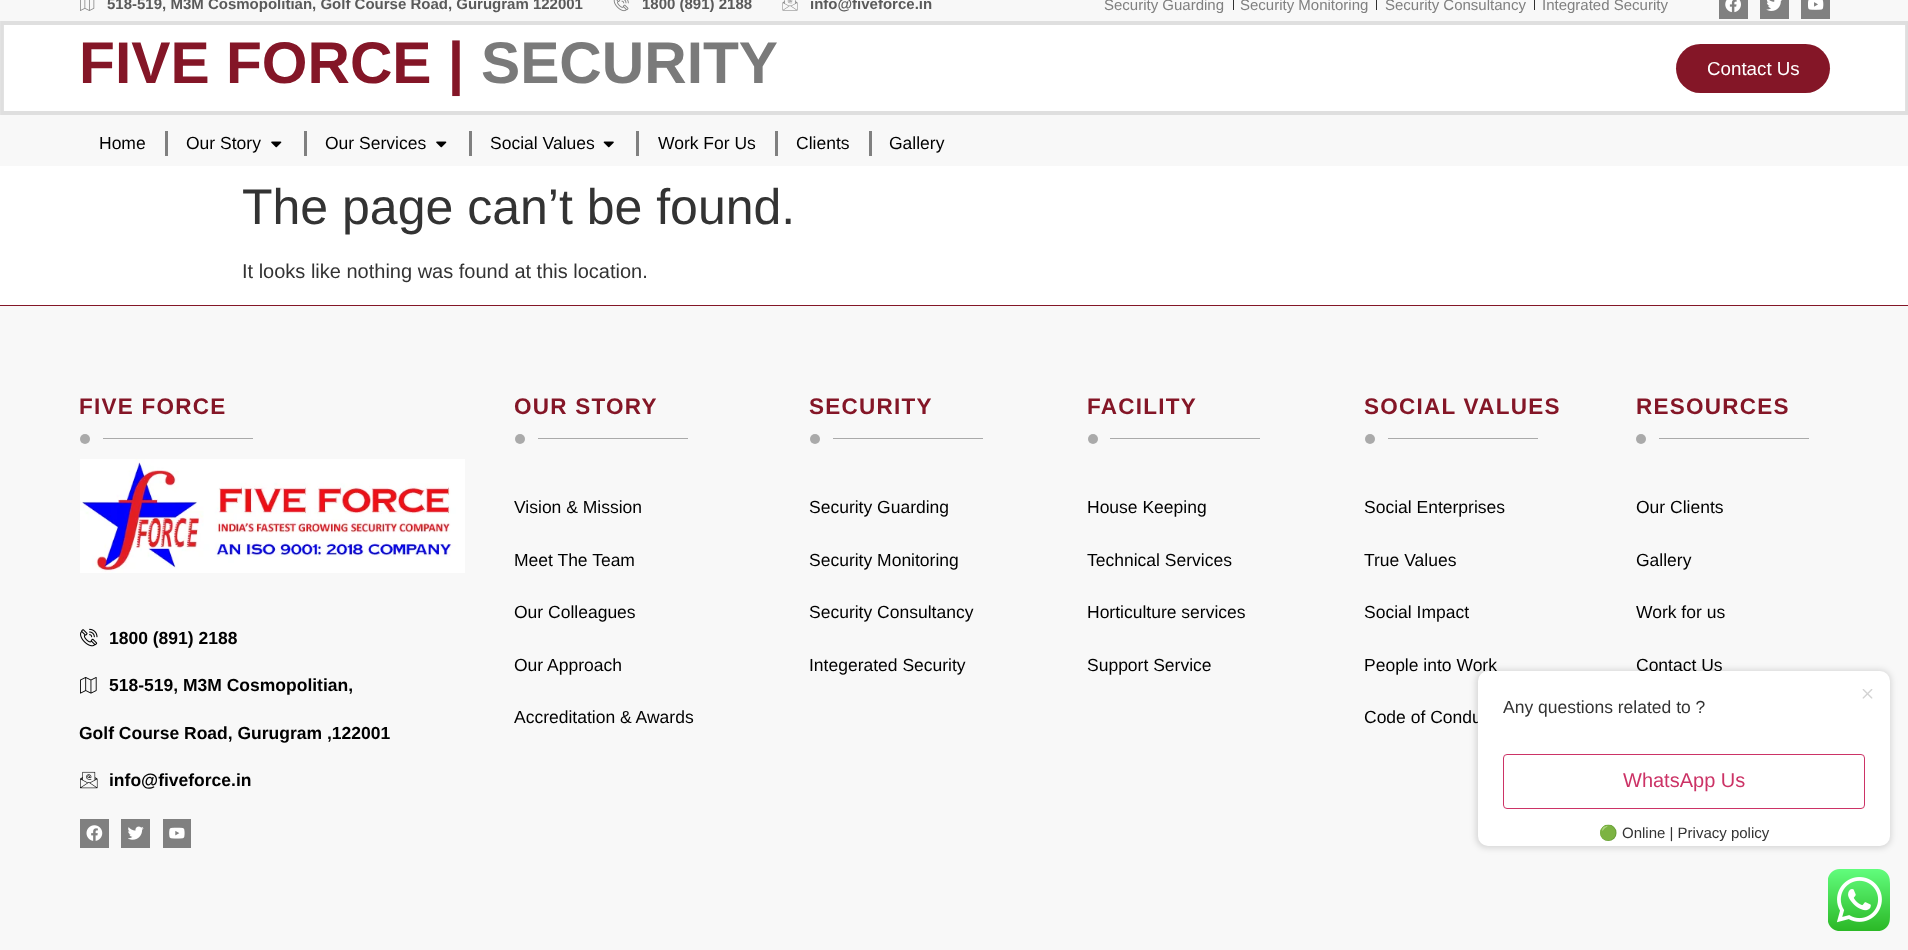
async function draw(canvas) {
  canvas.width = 1908;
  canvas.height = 950;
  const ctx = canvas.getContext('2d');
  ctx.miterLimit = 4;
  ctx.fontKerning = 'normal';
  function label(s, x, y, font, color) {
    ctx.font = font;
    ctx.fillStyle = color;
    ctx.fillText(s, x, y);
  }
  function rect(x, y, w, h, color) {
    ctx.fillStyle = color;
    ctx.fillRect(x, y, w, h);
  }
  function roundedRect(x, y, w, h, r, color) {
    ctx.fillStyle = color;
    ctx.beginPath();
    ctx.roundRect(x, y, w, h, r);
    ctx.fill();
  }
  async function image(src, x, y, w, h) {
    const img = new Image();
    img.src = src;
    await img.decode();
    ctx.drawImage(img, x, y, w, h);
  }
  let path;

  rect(0, 0, 1908, 950, '#fff');
  rect(0, 0, 1908, 21, '#f8f8f8');
  await image('assets/img1.png', 80, 0, 15, 11);
  label('518-519, M3M Cosmopolitian, Golf Course Road, Gurugram 122001', 107, 9, 'bold 15px Liberation Sans', '#5a5a5a');
  await image('assets/img2.png', 613, 0, 16, 12);
  label('1800 (891) 2188', 642, 9, 'bold 15px Liberation Sans', '#5a5a5a');
  await image('assets/img3.png', 782, 0, 16, 11);
  label('info@fiveforce.in', 810, 9, 'bold 15px Liberation Sans', '#5a5a5a');
  label('Security Guarding', 1104, 10, '15px Liberation Sans', '#808080');
  rect(1233, 0, 1, 10, '#313131');
  label('Security Monitoring', 1240, 10, '15px Liberation Sans', '#808080');
  rect(1376, 0, 1, 10, '#313131');
  label('Security Consultancy', 1385, 10, '15px Liberation Sans', '#808080');
  rect(1534, 0, 1, 10, '#313131');
  label('Integrated Security', 1542, 10, '15px Liberation Sans', '#808080');
  rect(1719, 0, 29, 19, '#808080');
  await image('assets/img4.png', 1725, 0, 16, 13);
  rect(1760, 0, 29, 19, '#808080');
  await image('assets/img5.png', 1766, 0, 16, 11);
  rect(1801, 0, 29, 19, '#808080');
  await image('assets/img6.png', 1808, 0, 16, 10);
  path = new Path2D('M2 23H1907V113H2Z');
  ctx.strokeStyle = '#dfdfdf';
  ctx.lineWidth = 3.8;
  ctx.stroke(path);
  label('FIVE FORCE |', 79, 83, 'bold 58.75px Liberation Sans', '#841627');
  label('SECURITY', 481, 83, 'bold 58.75px Liberation Sans', '#7a7a7a');
  roundedRect(1676, 44, 154, 49, 24.5, '#841627');
  label('Contact Us', 1707, 75, '18.75px Liberation Sans', '#fff');
  rect(0, 115, 1908, 51, '#f8f8f8');
  label('Home', 99, 149, '17.5px Liberation Sans', '#000');
  rect(165, 131, 3, 25, '#808080');
  label('Our Story', 186, 149, '17.5px Liberation Sans', '#000');
  await image('assets/img7.png', 271, 141, 11, 7);
  rect(304, 131, 3, 25, '#808080');
  label('Our Services', 325, 149, '17.5px Liberation Sans', '#000');
  await image('assets/img7.png', 436, 141, 11, 7);
  rect(469, 131, 3, 25, '#808080');
  label('Social Values', 490, 149, '17.5px Liberation Sans', '#000');
  await image('assets/img8.png', 603, 141, 11, 7);
  rect(636, 131, 3, 25, '#808080');
  label('Work For Us', 658, 149, '17.5px Liberation Sans', '#000');
  rect(775, 131, 3, 25, '#808080');
  label('Clients', 796, 149, '17.5px Liberation Sans', '#000');
  rect(869, 131, 3, 25, '#808080');
  label('Gallery', 889, 149, '17.5px Liberation Sans', '#000');
  label('The page can’t be found.', 242, 224, '50px Liberation Sans', '#333');
  label('It looks like nothing was found at this location.', 242, 278, '20px Liberation Sans', '#333');
  rect(0, 306, 1908, 644, '#f8f8f8');
  rect(0, 305, 1908, 1, '#841627');
  ctx.letterSpacing = '1.25px';
  label('FIVE FORCE', 79, 414, 'bold 22.5px Liberation Sans', '#841627');
  ctx.fillStyle = '#aaa';
  ctx.beginPath();
  ctx.arc(85, 439, 5, 0, 2 * Math.PI);
  ctx.fill();
  rect(103, 438, 150, 1, '#aaa');
  await image('assets/img9.png', 80, 459, 385, 114);
  await image('assets/img10.png', 80, 628, 18, 19);
  ctx.letterSpacing = '0px';
  label('1800 (891) 2188', 109, 644, 'bold 17.5px Liberation Sans', '#000');
  await image('assets/img11.png', 80, 677, 17, 17);
  label('518-519, M3M Cosmopolitian,', 109, 691, 'bold 17.5px Liberation Sans', '#000');
  label('Golf Course Road, Gurugram ,122001', 79, 739, 'bold 17.5px Liberation Sans', '#000');
  await image('assets/img12.png', 80, 771, 18, 18);
  label('info@fiveforce.in', 109, 786, 'bold 17.5px Liberation Sans', '#000');
  rect(80, 819, 29, 29, '#808080');
  await image('assets/img13.png', 86, 825, 17, 16);
  rect(121, 819, 29, 29, '#808080');
  await image('assets/img14.png', 128, 826, 16, 14);
  rect(163, 819, 28, 29, '#808080');
  await image('assets/img15.png', 169, 827, 16, 12);
  ctx.letterSpacing = '1.25px';
  label('OUR STORY', 514, 414, 'bold 22.5px Liberation Sans', '#841627');
  ctx.fillStyle = '#aaa';
  ctx.beginPath();
  ctx.arc(520, 439, 5, 0, 2 * Math.PI);
  ctx.fill();
  rect(538, 438, 150, 1, '#aaa');
  ctx.letterSpacing = '0px';
  label('Vision & Mission', 514, 513, '17.5px Liberation Sans', '#000');
  label('Meet The Team', 514, 566, '17.5px Liberation Sans', '#000');
  label('Our Colleagues', 514, 618, '17.5px Liberation Sans', '#000');
  label('Our Approach', 514, 671, '17.5px Liberation Sans', '#000');
  label('Accreditation & Awards', 514, 723, '17.5px Liberation Sans', '#000');
  ctx.letterSpacing = '1.25px';
  label('SECURITY', 809, 414, 'bold 22.5px Liberation Sans', '#841627');
  ctx.fillStyle = '#aaa';
  ctx.beginPath();
  ctx.arc(815, 439, 5, 0, 2 * Math.PI);
  ctx.fill();
  rect(833, 438, 150, 1, '#aaa');
  ctx.letterSpacing = '0px';
  label('Security Guarding', 809, 513, '17.5px Liberation Sans', '#000');
  label('Security Monitoring', 809, 566, '17.5px Liberation Sans', '#000');
  label('Security Consultancy', 809, 618, '17.5px Liberation Sans', '#000');
  label('Integerated Security', 809, 671, '17.5px Liberation Sans', '#000');
  ctx.letterSpacing = '1.25px';
  label('FACILITY', 1087, 414, 'bold 22.5px Liberation Sans', '#841627');
  ctx.fillStyle = '#aaa';
  ctx.beginPath();
  ctx.arc(1093, 439, 5, 0, 2 * Math.PI);
  ctx.fill();
  rect(1110, 438, 150, 1, '#aaa');
  ctx.letterSpacing = '0px';
  label('House Keeping', 1087, 513, '17.5px Liberation Sans', '#000');
  label('Technical Services', 1087, 566, '17.5px Liberation Sans', '#000');
  label('Horticulture services', 1087, 618, '17.5px Liberation Sans', '#000');
  label('Support Service', 1087, 671, '17.5px Liberation Sans', '#000');
  ctx.letterSpacing = '1.25px';
  label('SOCIAL VALUES', 1364, 414, 'bold 22.5px Liberation Sans', '#841627');
  ctx.fillStyle = '#aaa';
  ctx.beginPath();
  ctx.arc(1370, 439, 5, 0, 2 * Math.PI);
  ctx.fill();
  rect(1388, 438, 150, 1, '#aaa');
  ctx.letterSpacing = '0px';
  label('Social Enterprises', 1364, 513, '17.5px Liberation Sans', '#000');
  label('True Values', 1364, 566, '17.5px Liberation Sans', '#000');
  label('Social Impact', 1364, 618, '17.5px Liberation Sans', '#000');
  label('People into Work', 1364, 671, '17.5px Liberation Sans', '#000');
  label('Code of Condu', 1364, 723, '17.5px Liberation Sans', '#000');
  ctx.letterSpacing = '1.25px';
  label('RESOURCES', 1636, 414, 'bold 22.5px Liberation Sans', '#841627');
  ctx.fillStyle = '#aaa';
  ctx.beginPath();
  ctx.arc(1641, 439, 5, 0, 2 * Math.PI);
  ctx.fill();
  rect(1659, 438, 150, 1, '#aaa');
  ctx.letterSpacing = '0px';
  label('Our Clients', 1636, 513, '17.5px Liberation Sans', '#000');
  label('Gallery', 1636, 566, '17.5px Liberation Sans', '#000');
  label('Work for us', 1636, 618, '17.5px Liberation Sans', '#000');
  label('Contact Us', 1636, 671, '17.5px Liberation Sans', '#000');
  ctx.fillStyle = '#00000024';
  ctx.filter = 'blur(3px)';
  ctx.beginPath();
  ctx.roundRect(1476, 670, 415, 178, 11);
  ctx.fill();
  ctx.filter = 'none';
  ctx.fillStyle = '#fff';
  ctx.beginPath();
  ctx.roundRect(1478, 671, 412, 70, [10, 10, 0, 0]);
  ctx.fill();
  await image('assets/img16.png', 1862, 689, 11, 10);
  label('Any questions related to ?', 1503, 713, '17.5px Liberation Sans', '#333');
  rect(1478, 741, 412, 78, '#fff');
  ctx.beginPath();
  ctx.roundRect(1503.5, 754.5, 361, 54, 3.5);
  ctx.strokeStyle = '#c36';
  ctx.lineWidth = 1;
  ctx.stroke();
  label('WhatsApp Us', 1623, 787, '20px Liberation Sans', '#c36');
  ctx.fillStyle = '#fff';
  ctx.beginPath();
  ctx.roundRect(1478, 819, 412, 27, [0, 0, 10, 10]);
  ctx.fill();
  label('🟢', 1599, 838, '15px Noto Color Emoji', '#333');
  label('Online | Privacy policy', 1622, 838, '15px Liberation Sans', '#333');
  await image('assets/img17.png', 1828, 869, 62, 62);
}

draw(document.querySelector('canvas'));
